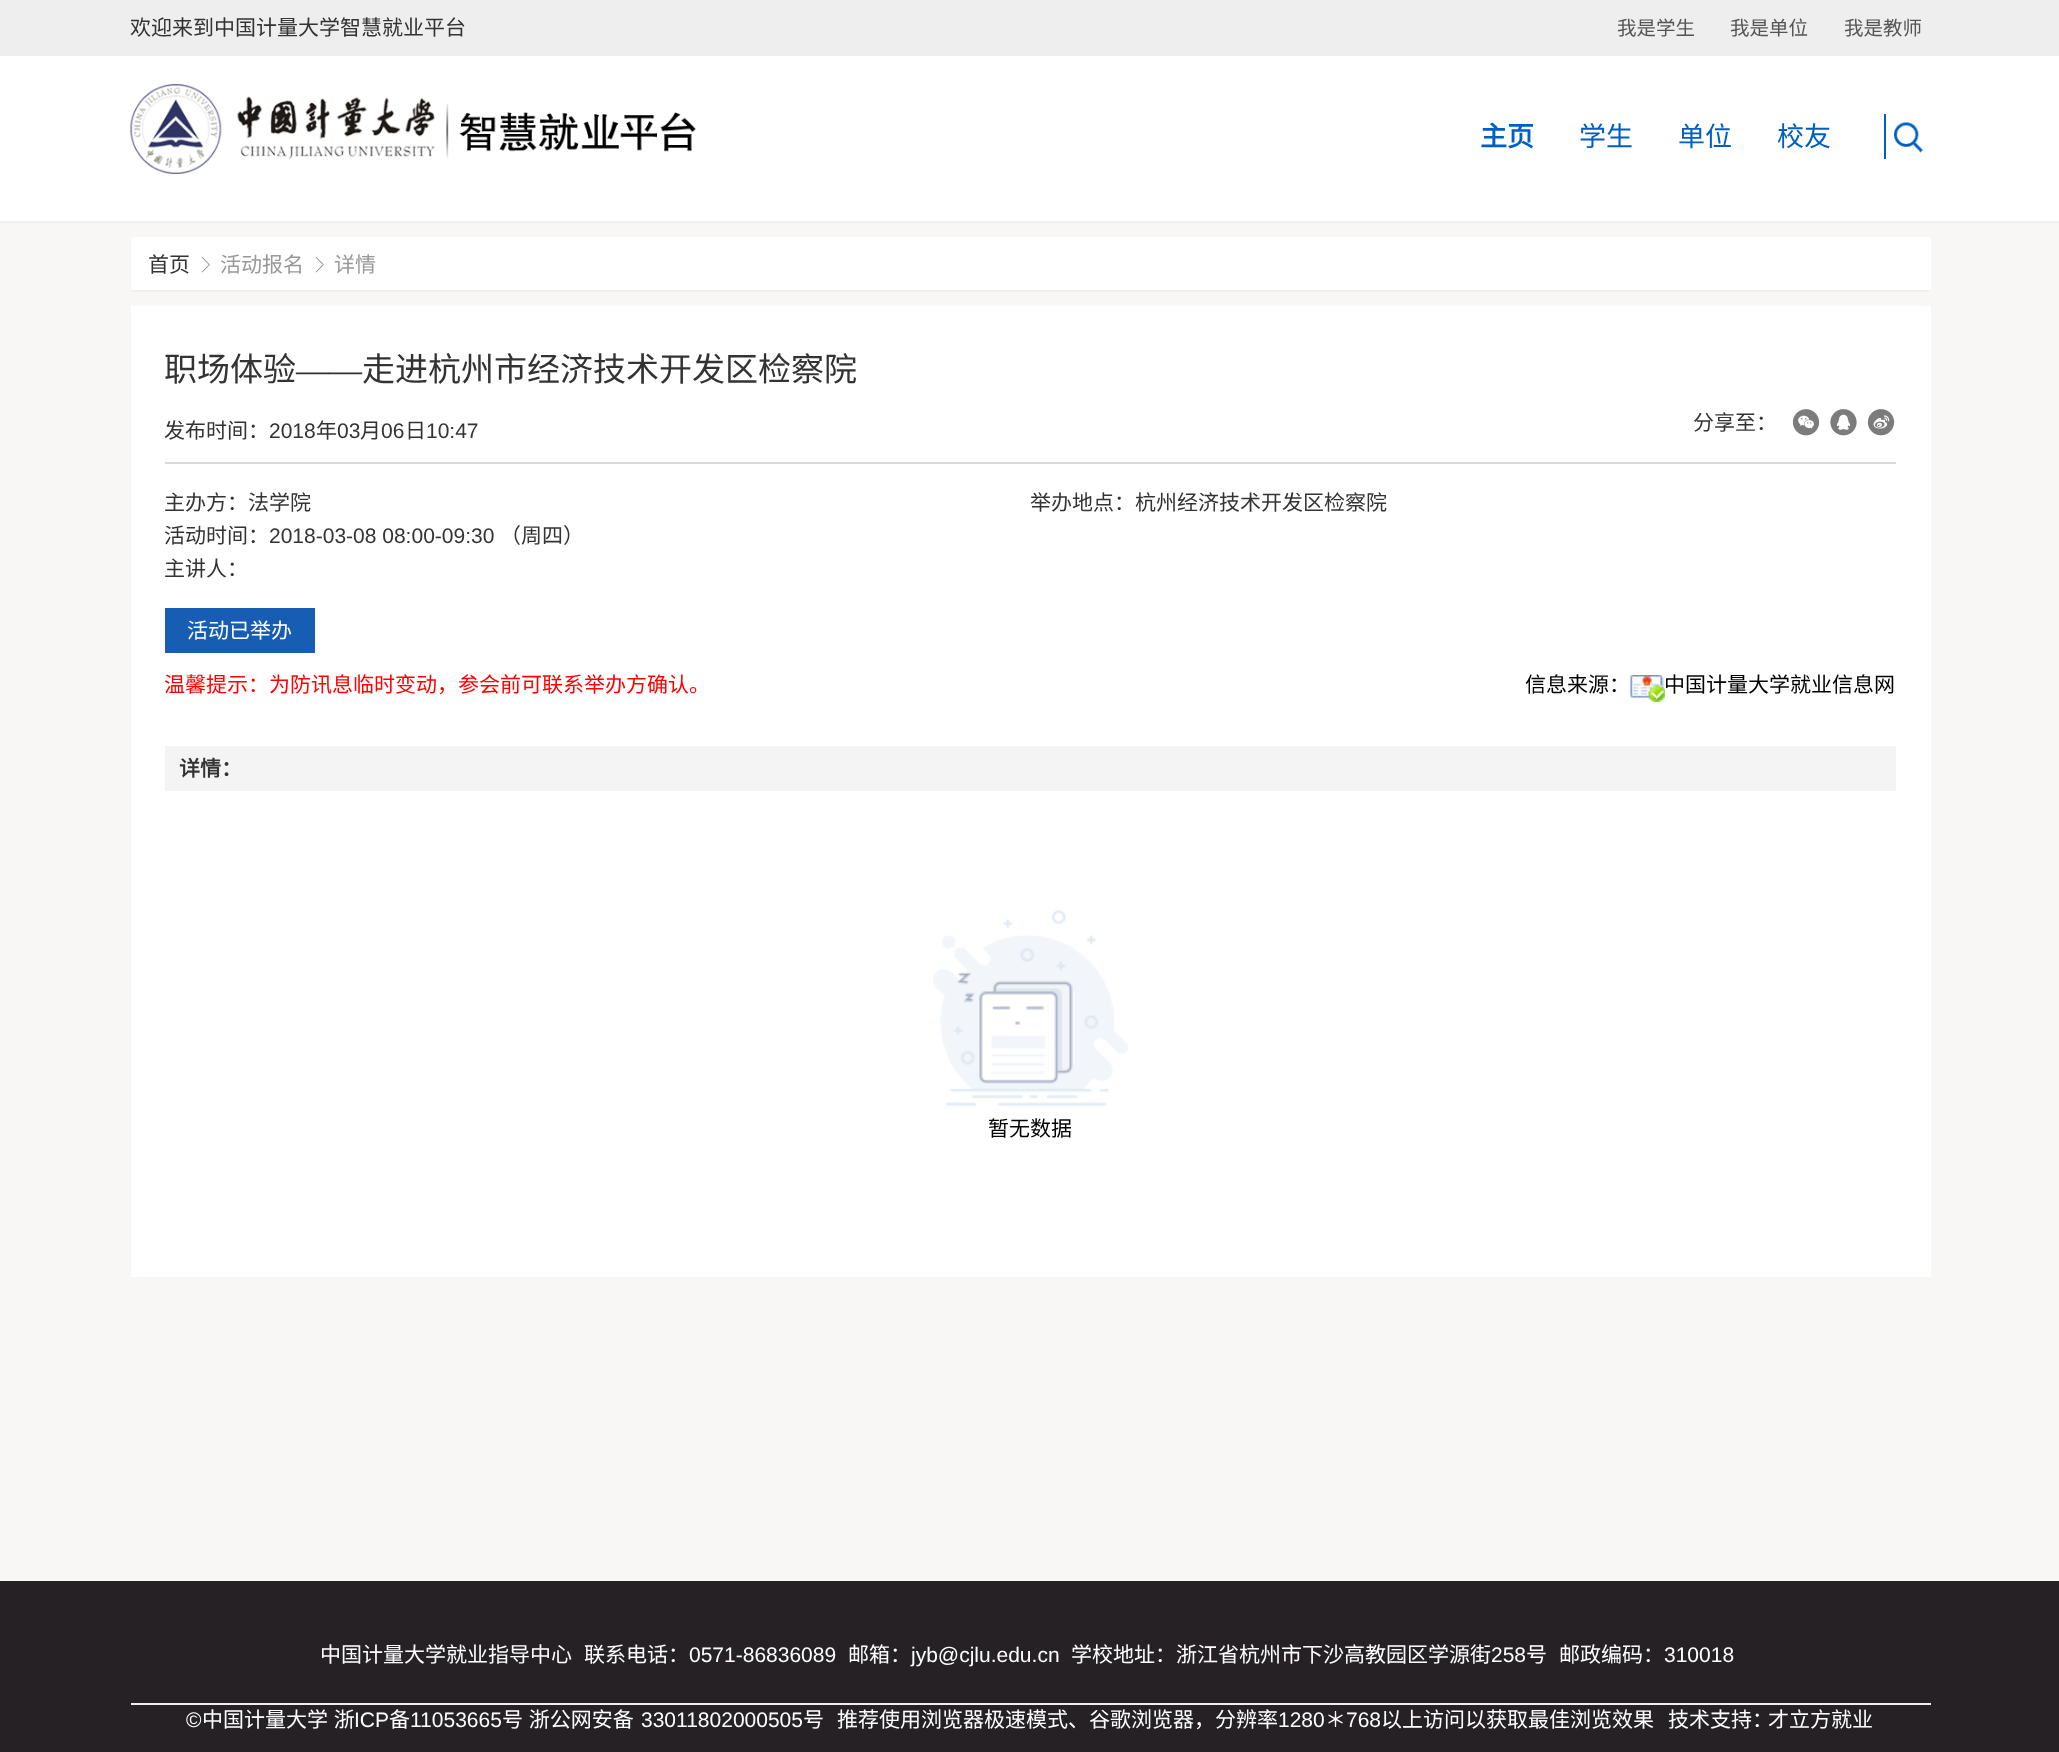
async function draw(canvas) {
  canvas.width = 2059;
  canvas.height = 1752;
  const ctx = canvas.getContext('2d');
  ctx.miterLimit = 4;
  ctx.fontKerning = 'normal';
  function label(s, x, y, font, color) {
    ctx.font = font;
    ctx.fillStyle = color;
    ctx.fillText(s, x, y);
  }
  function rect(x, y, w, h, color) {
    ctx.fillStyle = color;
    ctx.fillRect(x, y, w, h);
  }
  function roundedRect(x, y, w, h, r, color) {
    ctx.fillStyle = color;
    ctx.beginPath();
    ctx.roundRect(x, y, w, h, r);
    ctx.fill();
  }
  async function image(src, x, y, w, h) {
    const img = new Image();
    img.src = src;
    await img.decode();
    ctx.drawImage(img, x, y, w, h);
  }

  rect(0, 0, 2059, 1752, '#f8f7f5');
  rect(0, 0, 2059, 56, '#eee');
  label('欢迎来到中国计量大学智慧就业平台', 130, 35, '21px Noto Sans CJK SC', '#333');
  label('我是学生', 1617, 35, '19.5px Noto Sans CJK SC', '#555');
  label('我是单位', 1730, 35, '19.5px Noto Sans CJK SC', '#555');
  label('我是教师', 1844, 35, '19.5px Noto Sans CJK SC', '#555');
  rect(0, 56, 2059, 165, '#fff');
  rect(0, 221, 2059, 2, '#eee');
  await image('assets/img1.png', 130, 84, 566, 90);
  label('主页', 1480, 146, 'bold 27px Noto Sans CJK SC', '#005ec5');
  label('学生', 1579, 146, '27px Noto Sans CJK SC', '#005ec5');
  label('单位', 1678, 146, '27px Noto Sans CJK SC', '#005ec5');
  label('校友', 1777, 146, '27px Noto Sans CJK SC', '#005ec5');
  rect(1884, 114, 2, 45, '#005ec5');
  await image('assets/img2.png', 1894, 122, 29, 31);
  roundedRect(131, 237, 1800, 54, 3, '#fff');
  rect(132, 290, 1797, 2, '#eee');
  label('首页', 148, 272, '21px Noto Sans CJK SC', '#333');
  await image('assets/img3.png', 201, 257, 9, 16);
  label('活动报名', 220, 272, '21px Noto Sans CJK SC', '#999');
  await image('assets/img3.png', 315, 257, 9, 16);
  label('详情', 334, 272, '21px Noto Sans CJK SC', '#999');
  rect(131, 306, 1800, 971, '#fff');
  label('职场体验', 164, 381, '33px Noto Sans CJK SC', '#333');
  label('——', 296, 381, '33px Liberation Serif', '#333');
  label('走进杭州市经济技术开发区检察院', 362, 381, '33px Noto Sans CJK SC', '#333');
  rect(165, 462, 1731, 2, '#d9d9d9');
  label('发布时间：', 164, 438, '21px Noto Sans CJK SC', '#333');
  label('2018', 269, 438, '21px Liberation Sans', '#333');
  label('年', 316, 438, '21px Noto Sans CJK SC', '#333');
  label('03', 337, 438, '21px Liberation Sans', '#333');
  label('月', 360, 438, '21px Noto Sans CJK SC', '#333');
  label('06', 381, 438, '21px Liberation Sans', '#333');
  label('日', 405, 438, '21px Noto Sans CJK SC', '#333');
  label('10:47', 426, 438, '21px Liberation Sans', '#333');
  label('分享至：', 1693, 430, '21px Noto Sans CJK SC', '#333');
  await image('assets/img4.png', 1792, 409, 28, 27);
  await image('assets/img5.png', 1830, 409, 27, 27);
  await image('assets/img6.png', 1867, 409, 28, 27);
  label('主办方：法学院', 164, 510, '21px Noto Sans CJK SC', '#333');
  label('举办地点：杭州经济技术开发区检察院', 1030, 510, '21px Noto Sans CJK SC', '#333');
  label('活动时间：', 164, 543, '21px Noto Sans CJK SC', '#333');
  label('2018-03-08 08:00-09:30', 269, 543, '21px Liberation Sans', '#333');
  label('（周四）', 500, 543, '21px Noto Sans CJK SC', '#333');
  label('主讲人：', 164, 576, '21px Noto Sans CJK SC', '#333');
  rect(165, 608, 150, 45, '#185db4');
  label('活动已举办', 187, 638, '21px Noto Sans CJK SC', '#fff');
  label('温馨提示：为防讯息临时变动，参会前可联系举办方确认。', 164, 692, '21px Noto Sans CJK SC', '#f00');
  label('信息来源：', 1525, 692, '21px Noto Sans CJK SC', '#000');
  await image('assets/img7.png', 1630, 675, 35, 27);
  label('中国计量大学就业信息网', 1664, 692, '21px Noto Sans CJK SC', '#000');
  rect(165, 746, 1731, 45, '#f4f4f4');
  label('详情：', 179, 776, 'bold 21px Noto Sans CJK SC', '#333');
  await image('assets/img8.png', 933, 910, 195, 196);
  label('暂无数据', 988, 1136, '21px Noto Sans CJK SC', '#000');
  rect(0, 1581, 2059, 171, '#252125');
  label('中国计量大学就业指导中心', 320, 1662, '21px Noto Sans CJK SC', '#fff');
  label('联系电话：', 584, 1662, '21px Noto Sans CJK SC', '#fff');
  label('0571-86836089', 689, 1662, '21px Liberation Sans', '#fff');
  label('邮箱：', 848, 1662, '21px Noto Sans CJK SC', '#fff');
  label('jyb@cjlu.edu.cn', 911, 1662, '21px Liberation Sans', '#fff');
  label('学校地址：浙江省杭州市下沙高教园区学源街', 1071, 1662, '21px Noto Sans CJK SC', '#fff');
  label('258', 1491, 1662, '21px Liberation Sans', '#fff');
  label('号', 1526, 1662, '21px Noto Sans CJK SC', '#fff');
  label('邮政编码：', 1559, 1662, '21px Noto Sans CJK SC', '#fff');
  label('310018', 1664, 1662, '21px Liberation Sans', '#fff');
  rect(131, 1703, 1800, 2, '#eee');
  label('©', 186, 1727, '21px Liberation Sans', '#fff');
  ctx.wordSpacing = '1px';
  label('中国计量大学 浙', 202, 1727, '21px Noto Sans CJK SC', '#fff');
  ctx.wordSpacing = '0px';
  label('ICP', 354, 1727, '21px Liberation Sans', '#fff');
  label('备', 389, 1727, '21px Noto Sans CJK SC', '#fff');
  label('11053665', 410, 1727, '21px Liberation Sans', '#fff');
  ctx.wordSpacing = '1px';
  label('号 浙公网安备', 502, 1727, '21px Noto Sans CJK SC', '#fff');
  ctx.wordSpacing = '0px';
  label('33011802000505', 641, 1727, '21px Liberation Sans', '#fff');
  label('号', 803, 1727, '21px Noto Sans CJK SC', '#fff');
  label('推荐使用浏览器极速模式、谷歌浏览器，分辨率', 837, 1727, '21px Noto Sans CJK SC', '#fff');
  label('1280', 1278, 1727, '21px Liberation Sans', '#fff');
  label('＊', 1325, 1727, '21px Noto Sans CJK SC', '#fff');
  label('768', 1346, 1727, '21px Liberation Sans', '#fff');
  label('以上访问以获取最佳浏览效果', 1381, 1727, '21px Noto Sans CJK SC', '#fff');
  label('技术支持：', 1668, 1727, '21px Noto Sans CJK SC', '#fff');
  label('才立方就业', 1768, 1727, '21px Noto Sans CJK SC', '#fff');
}

draw(document.querySelector('canvas'));
